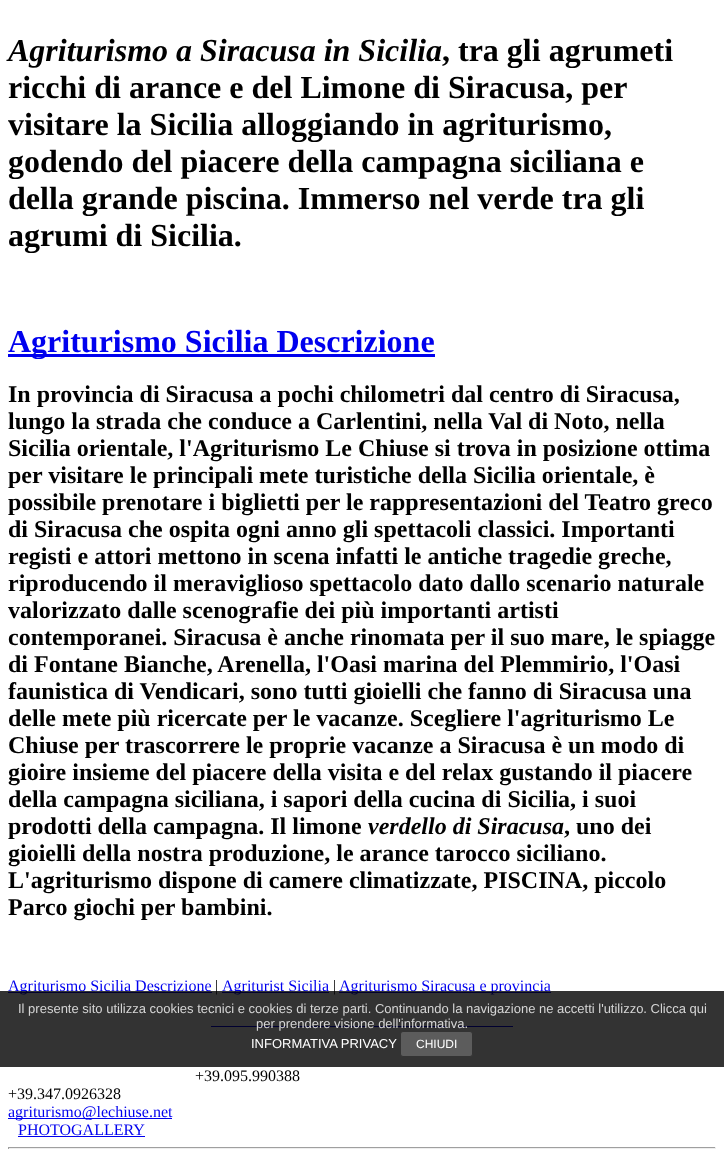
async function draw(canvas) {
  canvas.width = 724;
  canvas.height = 1157;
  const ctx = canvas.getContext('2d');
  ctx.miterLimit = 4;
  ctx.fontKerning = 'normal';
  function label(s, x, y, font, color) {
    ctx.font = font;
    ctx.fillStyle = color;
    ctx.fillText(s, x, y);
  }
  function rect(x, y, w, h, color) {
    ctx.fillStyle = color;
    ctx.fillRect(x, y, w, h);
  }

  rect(0, 0, 724, 1157, '#fff');
  label('Agriturismo a Siracusa in Sicilia', 8, 61, 'italic bold 32px Liberation Serif', '#000');
  label(', tra gli agrumeti', 442, 61, 'bold 32px Liberation Serif', '#000');
  label('ricchi di arance e del Limone di Siracusa, per', 8, 98, 'bold 32px Liberation Serif', '#000');
  label('visitare la Sicilia alloggiando in agriturismo,', 8, 135, 'bold 32px Liberation Serif', '#000');
  label('godendo del piacere della campagna siciliana e', 8, 172, 'bold 32px Liberation Serif', '#000');
  label('della grande piscina. Immerso nel verde tra gli', 8, 209, 'bold 32px Liberation Serif', '#000');
  label('agrumi di Sicilia.', 8, 246, 'bold 32px Liberation Serif', '#000');
  rect(8, 354, 427, 3, '#00e');
  label('Agriturismo Sicilia Descrizione', 8, 352, 'bold 32px Liberation Serif', '#00e');
  label('In provincia di Siracusa a pochi chilometri dal centro di Siracusa,', 8, 402, 'bold 24px Liberation Serif', '#000');
  label('lungo la strada che conduce a Carlentini, nella Val di Noto, nella', 8, 429, 'bold 24px Liberation Serif', '#000');
  label('Sicilia orientale, l\'Agriturismo Le Chiuse si trova in posizione ottima', 8, 456, 'bold 24px Liberation Serif', '#000');
  label('per visitare le principali mete turistiche della Sicilia orientale, è', 8, 483, 'bold 24px Liberation Serif', '#000');
  label('possibile prenotare i biglietti per le rappresentazioni del Teatro greco', 8, 510, 'bold 24px Liberation Serif', '#000');
  label('di Siracusa che ospita ogni anno gli spettacoli classici. Importanti', 8, 537, 'bold 24px Liberation Serif', '#000');
  label('registi e attori mettono in scena infatti le antiche tragedie greche,', 8, 564, 'bold 24px Liberation Serif', '#000');
  label('riproducendo il meraviglioso spettacolo dato dallo scenario naturale', 8, 591, 'bold 24px Liberation Serif', '#000');
  label('valorizzato dalle scenografie dei più importanti artisti', 8, 618, 'bold 24px Liberation Serif', '#000');
  label('contemporanei. Siracusa è anche rinomata per il suo mare, le spiagge', 8, 645, 'bold 24px Liberation Serif', '#000');
  label('di Fontane Bianche, Arenella, l\'Oasi marina del Plemmirio, l\'Oasi', 8, 672, 'bold 24px Liberation Serif', '#000');
  label('faunistica di Vendicari, sono tutti gioielli che fanno di Siracusa una', 8, 699, 'bold 24px Liberation Serif', '#000');
  label('delle mete più ricercate per le vacanze. Scegliere l\'agriturismo Le', 8, 726, 'bold 24px Liberation Serif', '#000');
  label('Chiuse per trascorrere le proprie vacanze a Siracusa è un modo di', 8, 753, 'bold 24px Liberation Serif', '#000');
  label('gioire insieme del piacere della visita e del relax gustando il piacere', 8, 780, 'bold 24px Liberation Serif', '#000');
  label('della campagna siciliana, i sapori della cucina di Sicilia, i suoi', 8, 807, 'bold 24px Liberation Serif', '#000');
  label('prodotti della campagna. Il limone', 8, 834, 'bold 24px Liberation Serif', '#000');
  label('verdello di Siracusa', 368, 834, 'italic bold 24px Liberation Serif', '#000');
  label(', uno dei', 564, 834, 'bold 24px Liberation Serif', '#000');
  label('gioielli della nostra produzione, le arance tarocco siciliano.', 8, 861, 'bold 24px Liberation Serif', '#000');
  label('L\'agriturismo dispone di camere climatizzate, PISCINA, piccolo', 8, 888, 'bold 24px Liberation Serif', '#000');
  label('Parco giochi per bambini.', 8, 915, 'bold 24px Liberation Serif', '#000');
  rect(8, 992, 204, 1, '#00e');
  label('Agriturismo Sicilia Descrizione', 8, 991, '16px Liberation Serif', '#00e');
  label('|', 215, 991, '16px Liberation Serif', '#000');
  rect(222, 992, 107, 1, '#00e');
  label('Agriturist Sicilia', 222, 991, '16px Liberation Serif', '#00e');
  label('|', 333, 991, '16px Liberation Serif', '#000');
  rect(339, 992, 212, 1, '#00e');
  label('Agriturismo Siracusa e provincia', 339, 991, '16px Liberation Serif', '#00e');
  rect(211, 1026, 75, 1, '#00e');
  rect(297, 1026, 69, 1, '#00e');
  rect(373, 1026, 74, 1, '#00e');
  rect(458, 1026, 55, 1, '#00e');
  rect(0, 991, 724, 76, '#000000cc');
  label('Il presente sito utilizza cookies tecnici e cookies di terze parti. Continuando la navigazione ne accetti l\'utilizzo. Clicca qui', 18, 1013, '13px Liberation Sans', '#d6d6d6');
  label('per prendere visione dell\'informativa.', 256, 1028, '13px Liberation Sans', '#d6d6d6');
  label('INFORMATIVA PRIVACY', 251, 1048, '13px Liberation Sans', '#fff');
  ctx.fillStyle = '#5c5c5c';
  ctx.beginPath();
  ctx.roundRect(400.5, 1031.5, 72, 25, 2.5);
  ctx.fill();
  ctx.strokeStyle = '#333';
  ctx.stroke();
  label('CHIUDI', 416, 1048, '12px Liberation Sans', '#fff');
  label('+39.095.990388', 195, 1081, '16px Liberation Serif', '#000');
  label('+39.347.0926328', 8, 1099, '16px Liberation Serif', '#000');
  rect(8, 1118, 164, 1, '#00e');
  label('agriturismo@lechiuse.net', 8, 1117, '16px Liberation Serif', '#00e');
  label('PHOTOGALLERY', 18, 1135, '16px Liberation Serif', '#00e');
  rect(18, 1136, 127, 1, '#00e');
  rect(8, 1147, 708, 1, '#9f9f9f');
  rect(715, 1147, 1, 2, '#eee');
  rect(8, 1148, 708, 1, '#eee');
  rect(8, 1147, 1, 2, '#9f9f9f');
}

draw(document.querySelector('canvas'));
